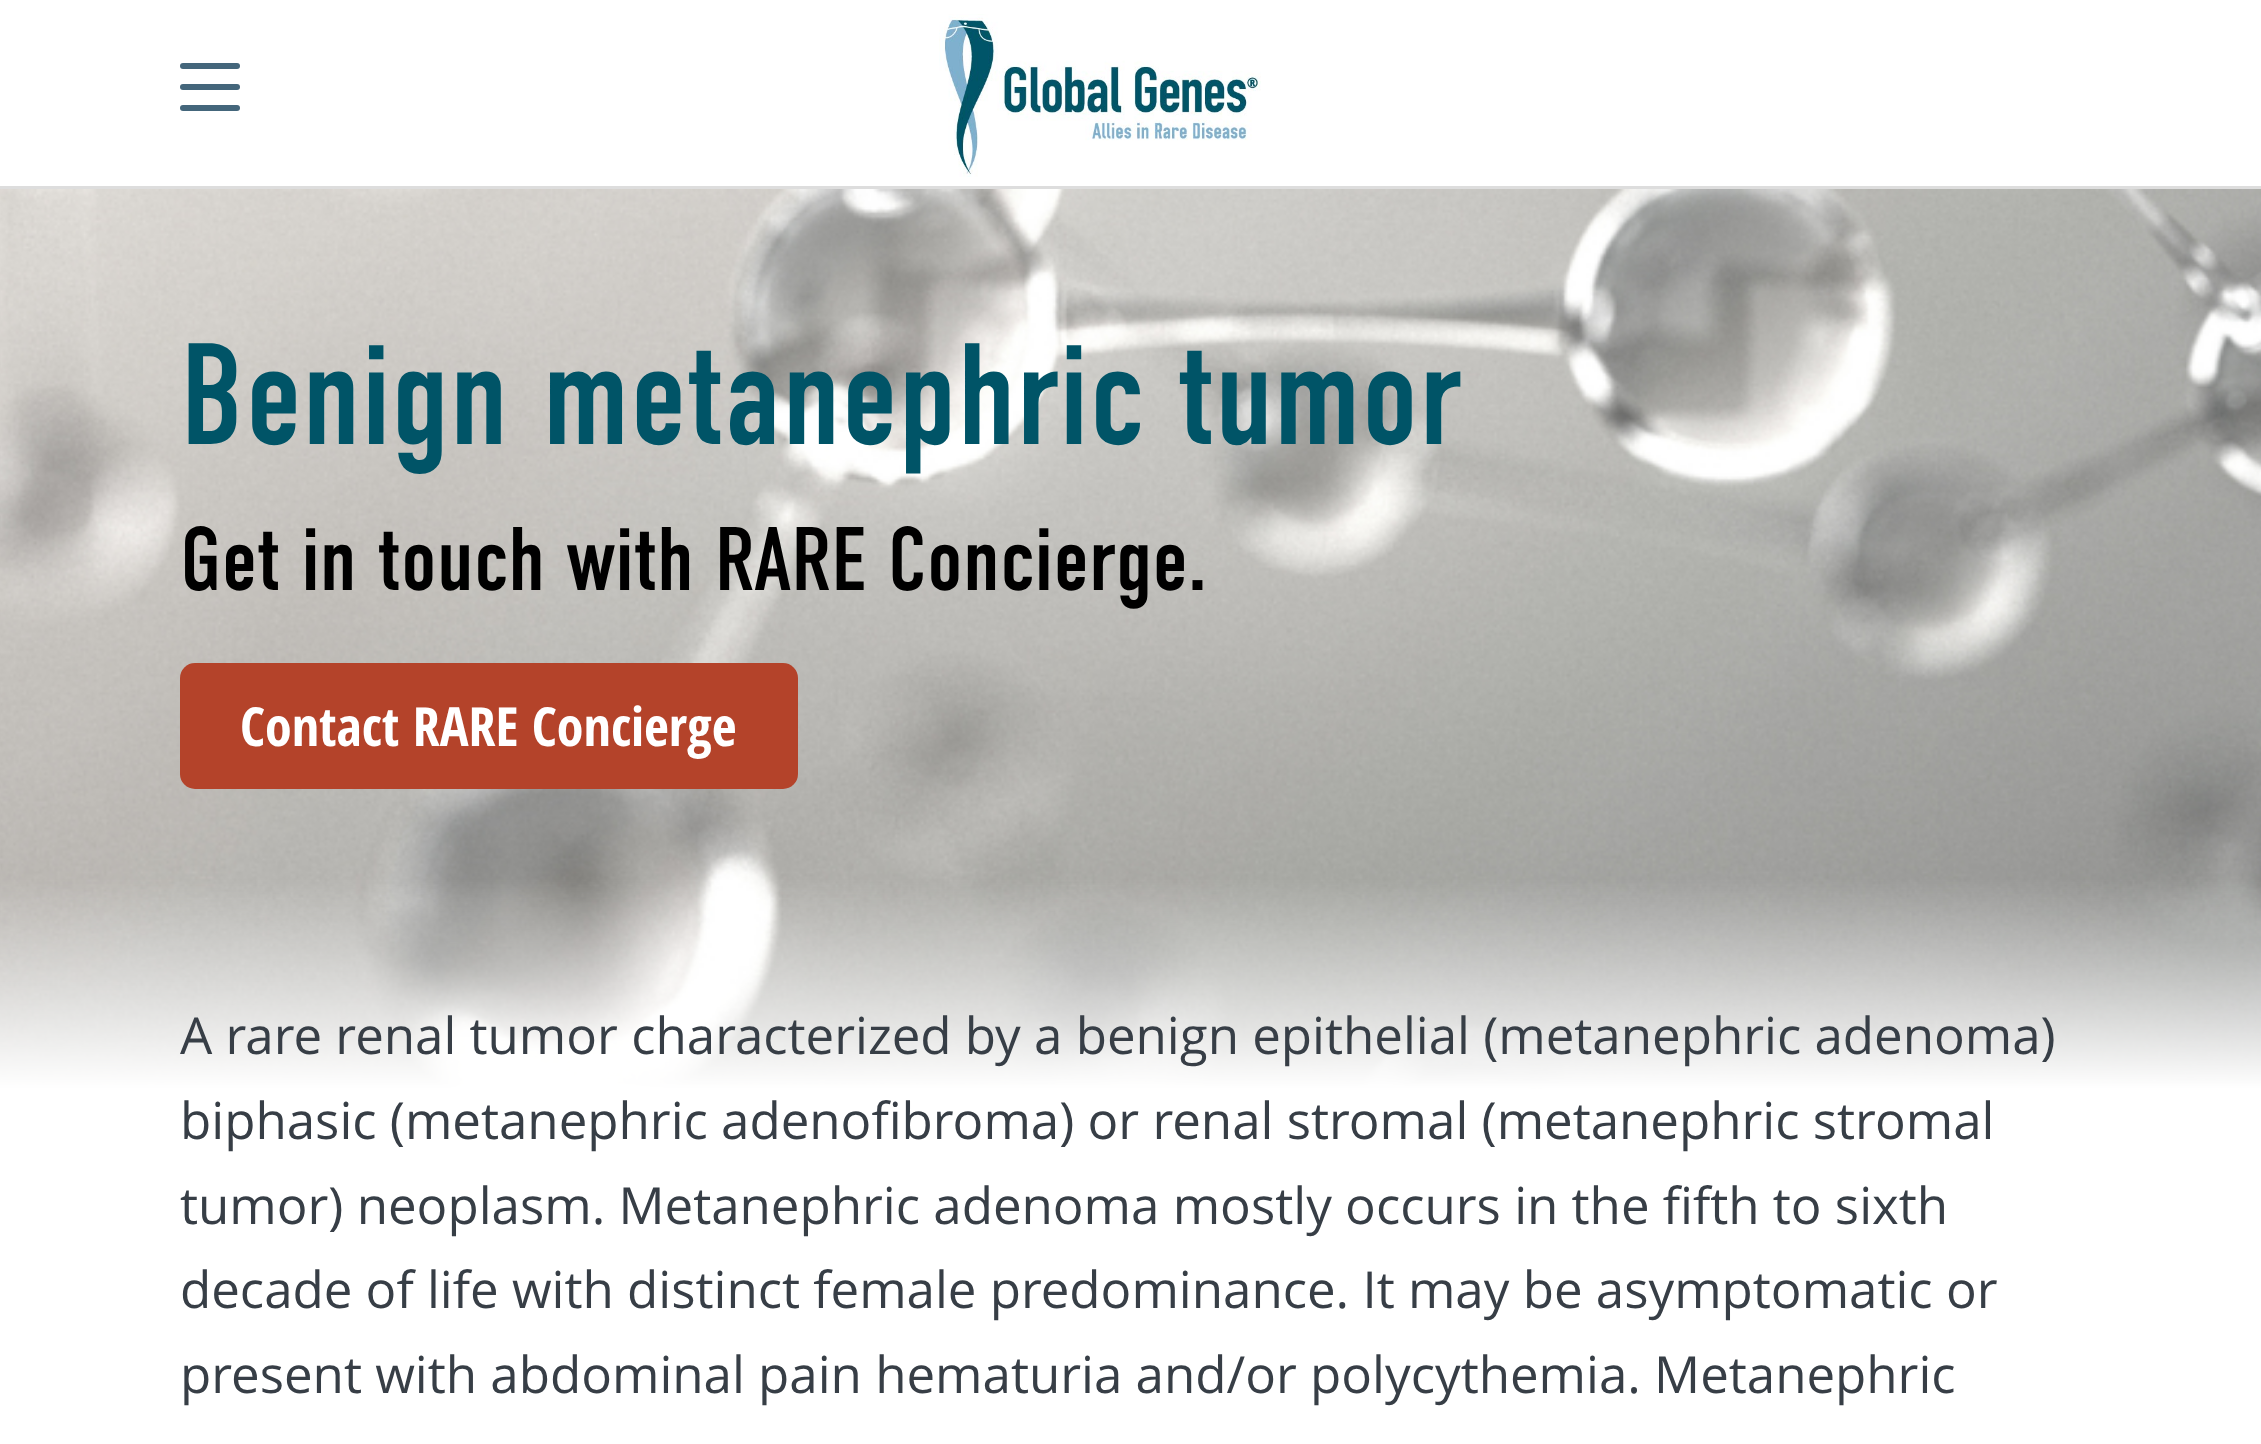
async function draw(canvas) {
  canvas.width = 2261;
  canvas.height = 1444;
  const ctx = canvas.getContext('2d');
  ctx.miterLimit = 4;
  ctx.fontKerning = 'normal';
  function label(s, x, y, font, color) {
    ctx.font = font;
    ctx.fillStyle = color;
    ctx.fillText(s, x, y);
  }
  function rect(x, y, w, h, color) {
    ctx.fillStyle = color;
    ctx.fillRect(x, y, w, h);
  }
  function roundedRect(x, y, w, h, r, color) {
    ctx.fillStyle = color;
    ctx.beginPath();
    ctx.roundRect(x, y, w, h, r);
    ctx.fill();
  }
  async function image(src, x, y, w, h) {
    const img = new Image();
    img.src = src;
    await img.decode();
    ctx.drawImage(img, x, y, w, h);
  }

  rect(0, 0, 2261, 1444, '#fff');
  rect(0, 186, 2261, 3, '#ddd');
  roundedRect(180, 84, 60, 6, 3, '#44667b');
  roundedRect(180, 63, 60, 6, 3, '#44667b');
  roundedRect(180, 105, 60, 6, 3, '#44667b');
  await image('assets/img1.png', 939, 14, 322, 163);
  await image('assets/img2.png', 0, 189, 2261, 900);
  label('Benign metanephric tumor', 180, 444, '144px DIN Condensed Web', '#005467');
  label('Get in touch with RARE Concierge.', 180, 590, '90px DIN Condensed Web', '#000');
  roundedRect(180, 663, 618, 126, 15, '#b4432a');
  label('Contact RARE Concierge', 240, 746, 'bold 54px Open Sans Condensed', '#fff');
  label('A rare renal tumor characterized by a benign epithelial (metanephric adenoma)', 180, 1054, '51px Open Sans', '#373e46');
  label('biphasic (metanephric adenofibroma) or renal stromal (metanephric stromal', 180, 1139, '51px Open Sans', '#373e46');
  label('tumor) neoplasm. Metanephric adenoma mostly occurs in the fifth to sixth', 180, 1224, '51px Open Sans', '#373e46');
  label('decade of life with distinct female predominance. It may be asymptomatic or', 180, 1308, '51px Open Sans', '#373e46');
  label('present with abdominal pain hematuria and/or polycythemia. Metanephric', 180, 1393, '51px Open Sans', '#373e46');
}

draw(document.querySelector('canvas'));
